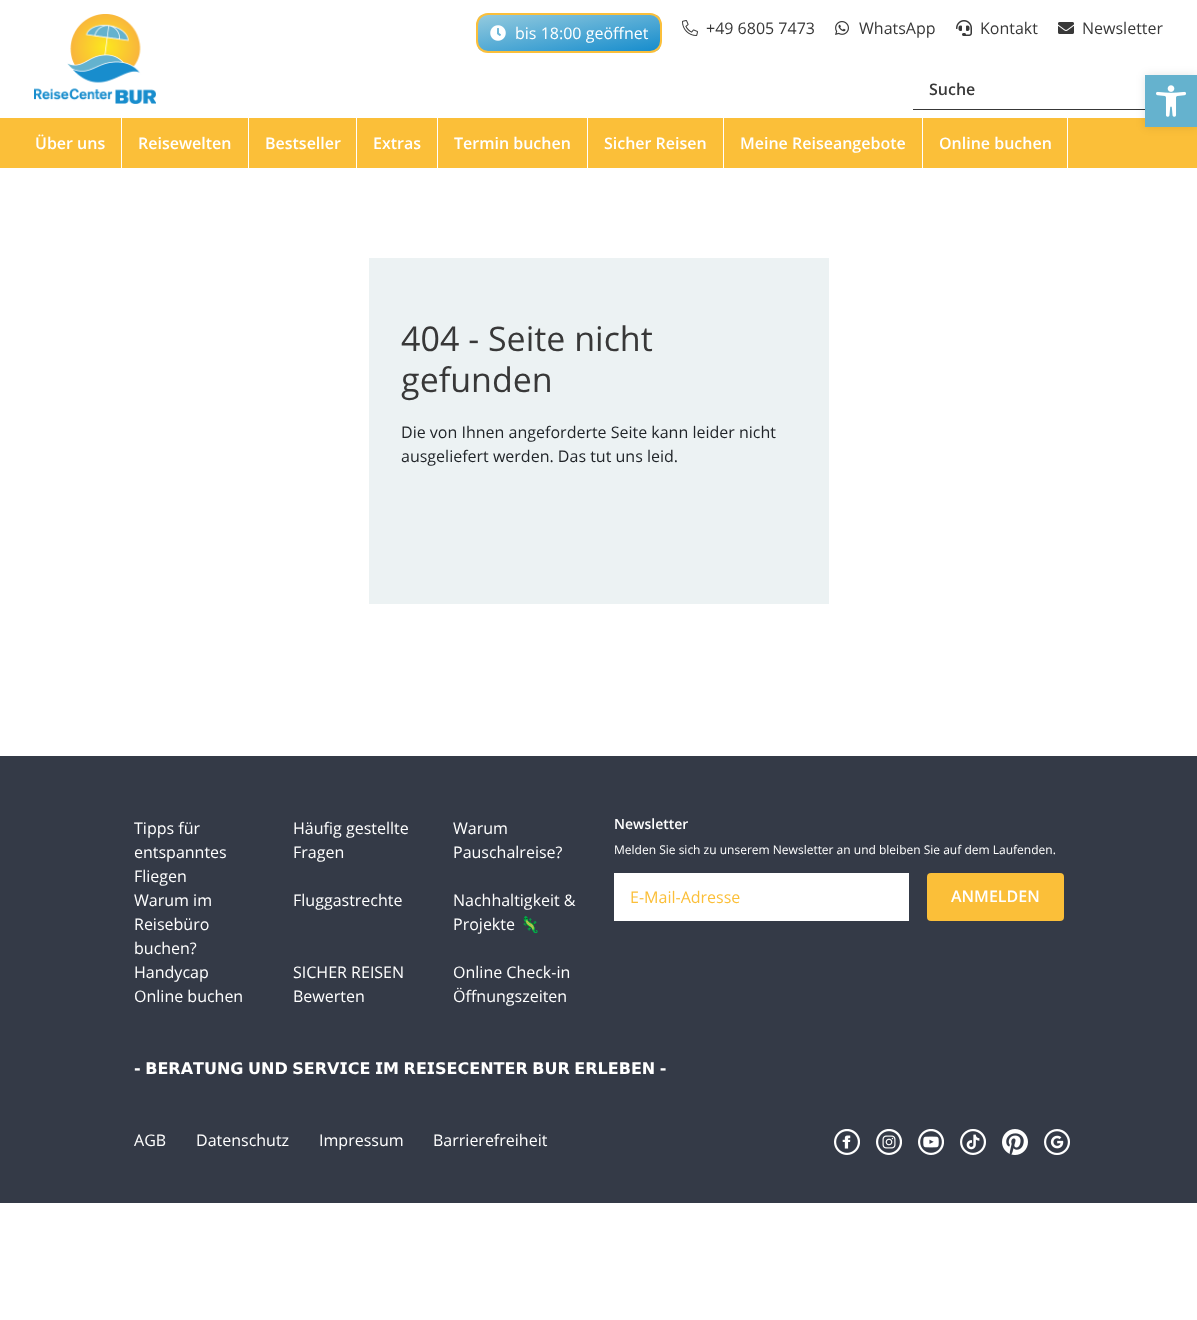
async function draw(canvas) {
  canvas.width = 1197;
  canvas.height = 1320;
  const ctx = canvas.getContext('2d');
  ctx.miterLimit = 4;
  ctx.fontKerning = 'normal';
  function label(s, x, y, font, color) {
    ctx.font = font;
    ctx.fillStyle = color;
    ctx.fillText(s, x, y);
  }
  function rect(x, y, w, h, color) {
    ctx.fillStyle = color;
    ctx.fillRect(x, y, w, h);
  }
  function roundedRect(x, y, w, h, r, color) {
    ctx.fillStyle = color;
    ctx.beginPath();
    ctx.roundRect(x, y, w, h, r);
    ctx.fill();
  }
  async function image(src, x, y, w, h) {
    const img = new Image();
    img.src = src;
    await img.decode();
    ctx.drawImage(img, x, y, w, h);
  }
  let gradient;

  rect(0, 0, 1197, 1320, '#fff');
  await image('assets/img1.png', 34, 14, 122, 90);
  ctx.save();
  ctx.beginPath();
  ctx.roundRect(476, 13, 186, 40, 12);
  ctx.clip();
  gradient = ctx.createLinearGradient(575, 66, 563, 0);
  gradient.addColorStop(0, '#178dcd');
  gradient.addColorStop(1, '#93cade');
  ctx.fillStyle = gradient;
  ctx.fillRect(478, 15, 182, 36);
  ctx.restore();
  ctx.beginPath();
  ctx.roundRect(477, 14, 184, 38, 11);
  ctx.strokeStyle = '#fbbf3a';
  ctx.lineWidth = 2;
  ctx.stroke();
  await image('assets/img2.png', 490, 25, 16, 16);
  label('bis 18:00 geöffnet', 515, 39, '16px Open Sans', '#fff');
  await image('assets/img3.png', 682, 20, 16, 16);
  label('+49 6805 7473', 706, 34, '16px Open Sans', '#383838');
  await image('assets/img4.png', 835, 21, 14, 14);
  label('WhatsApp', 859, 34, '16px Open Sans', '#383838');
  await image('assets/img5.png', 956, 20, 16, 16);
  label('Kontakt', 980, 34, '16px Open Sans', '#383838');
  await image('assets/img6.png', 1058, 22, 16, 12);
  label('Newsletter', 1082, 34, '16px Open Sans', '#383838');
  rect(913, 109, 232, 1, '#383838');
  label('Suche', 929, 95, '600 16px Open Sans', '#383838');
  rect(0, 118, 1197, 50, '#fbbf39');
  rect(121, 118, 1, 50, '#fff');
  label('Über uns', 35, 149, '600 16px Open Sans', '#fff');
  rect(248, 118, 1, 50, '#fff');
  label('Reisewelten', 138, 149, '600 16px Open Sans', '#fff');
  rect(356, 118, 1, 50, '#fff');
  label('Bestseller', 265, 149, '600 16px Open Sans', '#fff');
  rect(437, 118, 1, 50, '#fff');
  label('Extras', 373, 149, '600 16px Open Sans', '#fff');
  rect(587, 118, 1, 50, '#fff');
  label('Termin buchen', 454, 149, '600 16px Open Sans', '#fff');
  rect(723, 118, 1, 50, '#fff');
  label('Sicher Reisen', 604, 149, '600 16px Open Sans', '#fff');
  rect(922, 118, 1, 50, '#fff');
  label('Meine Reiseangebote', 740, 149, '600 16px Open Sans', '#fff');
  rect(1067, 118, 1, 50, '#fff');
  label('Online buchen', 939, 149, '600 16px Open Sans', '#fff');
  ctx.fillStyle = '#0000001a';
  ctx.filter = 'blur(5px)';
  ctx.beginPath();
  ctx.rect(1145, 75, 52, 52);
  ctx.fill();
  ctx.filter = 'none';
  rect(1145, 75, 52, 52, '#65b2ce');
  await image('assets/img7.png', 1156, 85, 30, 32);
  rect(369, 258, 460, 346, '#ecf2f3');
  label('404 - Seite nicht', 401, 351, '34px Open Sans', '#383838');
  label('gefunden', 401, 392, '34px Open Sans', '#383838');
  label('Die von Ihnen angeforderte Seite kann leider nicht', 401, 438, '16px Open Sans', '#212529');
  label('ausgeliefert werden. Das tut uns leid.', 401, 462, '16px Open Sans', '#212529');
  rect(0, 756, 1197, 447, '#343a47');
  label('Tipps für', 134, 834, '16px Open Sans', '#fff');
  label('entspanntes', 134, 858, '16px Open Sans', '#fff');
  label('Fliegen', 134, 882, '16px Open Sans', '#fff');
  label('Häufig gestellte', 293, 834, '16px Open Sans', '#fff');
  label('Fragen', 293, 858, '16px Open Sans', '#fff');
  label('Warum', 453, 834, '16px Open Sans', '#fff');
  label('Pauschalreise?', 453, 858, '16px Open Sans', '#fff');
  label('Warum im', 134, 906, '16px Open Sans', '#fff');
  label('Reisebüro', 134, 930, '16px Open Sans', '#fff');
  label('buchen?', 134, 954, '16px Open Sans', '#fff');
  label('Fluggastrechte', 293, 906, '16px Open Sans', '#fff');
  label('Nachhaltigkeit &', 453, 906, '16px Open Sans', '#fff');
  label('Projekte', 453, 930, '16px Open Sans', '#fff');
  label('🦎', 520, 930, '16px Noto Color Emoji', '#fff');
  label('Handycap', 134, 978, '16px Open Sans', '#fff');
  label('SICHER REISEN', 293, 978, '16px Open Sans', '#fff');
  label('Online Check-in', 453, 978, '16px Open Sans', '#fff');
  label('Online buchen', 134, 1002, '16px Open Sans', '#fff');
  label('Bewerten', 293, 1002, '16px Open Sans', '#fff');
  label('Öffnungszeiten', 453, 1002, '16px Open Sans', '#fff');
  label('Newsletter', 614, 829, '600 14px Open Sans', '#fff');
  label('Melden Sie sich zu unserem Newsletter an und bleiben Sie auf dem Laufenden.', 614, 854, '12px Open Sans', '#fff');
  rect(614, 873, 295, 48, '#fff');
  label('E-Mail-Adresse', 630, 903, '16px Open Sans', '#fbbf39');
  roundedRect(927, 873, 137, 48, 4, '#fbbf39');
  label('ANMELDEN', 951, 902, '600 16px Open Sans', '#fff');
  ctx.wordSpacing = '-1px';
  label('- 𝗕𝗘𝗥𝗔𝗧𝗨𝗡𝗚 𝗨𝗡𝗗 𝗦𝗘𝗥𝗩𝗜𝗖𝗘 𝗜𝗠 𝗥𝗘𝗜𝗦𝗘𝗖𝗘𝗡𝗧𝗘𝗥 𝗕𝗨𝗥 𝗘𝗥𝗟𝗘𝗕𝗘𝗡 -', 134, 1074, 'bold 16px DejaVu Sans', '#fff');
  ctx.wordSpacing = '0px';
  label('AGB', 134, 1146, '16px Open Sans', '#fff');
  label('Datenschutz', 196, 1146, '16px Open Sans', '#fff');
  label('Impressum', 319, 1146, '16px Open Sans', '#fff');
  label('Barrierefreiheit', 433, 1146, '16px Open Sans', '#fff');
  await image('assets/img8.png', 834, 1129, 26, 26);
  await image('assets/img9.png', 876, 1129, 26, 26);
  await image('assets/img10.png', 918, 1129, 26, 26);
  await image('assets/img11.png', 960, 1129, 26, 26);
  await image('assets/img12.png', 1002, 1129, 26, 26);
  await image('assets/img13.png', 1044, 1129, 26, 26);
}

draw(document.querySelector('canvas'));
